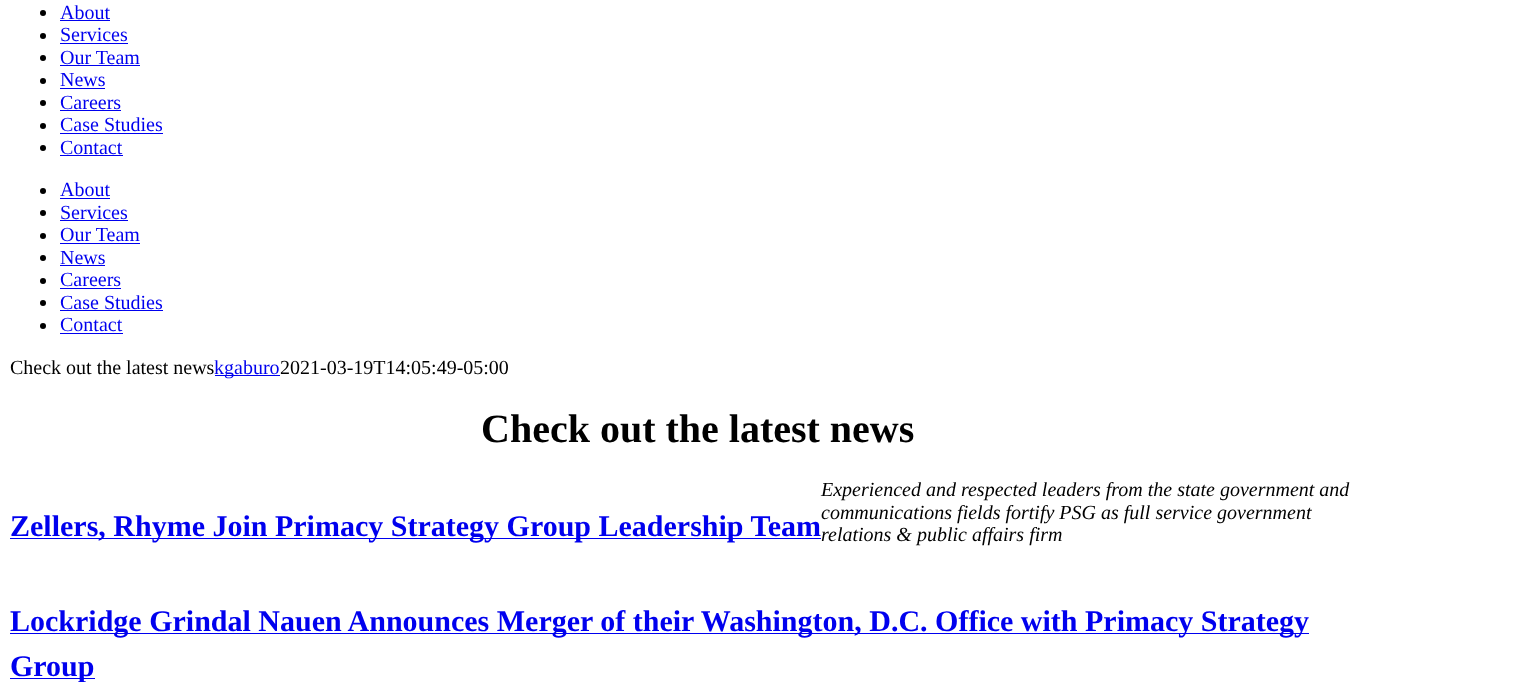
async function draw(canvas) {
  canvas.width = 1530;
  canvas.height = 682;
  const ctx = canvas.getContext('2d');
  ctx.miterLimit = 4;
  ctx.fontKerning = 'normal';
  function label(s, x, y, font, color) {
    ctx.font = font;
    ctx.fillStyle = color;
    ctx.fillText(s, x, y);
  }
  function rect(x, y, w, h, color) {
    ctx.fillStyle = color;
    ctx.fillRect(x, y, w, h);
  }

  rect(0, 0, 1530, 682, '#fff');
  ctx.fillStyle = '#000';
  ctx.beginPath();
  ctx.arc(43, 13, 3, 0, 2 * Math.PI);
  ctx.fill();
  label('About', 60, 19, '20px Liberation Serif', '#00e');
  rect(60, 20, 50, 1, '#00e');
  ctx.fillStyle = '#000';
  ctx.beginPath();
  ctx.arc(43, 36, 3, 0, 2 * Math.PI);
  ctx.fill();
  label('Services', 60, 41, '20px Liberation Serif', '#00e');
  rect(60, 43, 68, 1, '#00e');
  ctx.fillStyle = '#000';
  ctx.beginPath();
  ctx.arc(43, 58, 3, 0, 2 * Math.PI);
  ctx.fill();
  label('Our Team', 60, 64, '20px Liberation Serif', '#00e');
  rect(60, 65, 80, 1, '#00e');
  ctx.fillStyle = '#000';
  ctx.beginPath();
  ctx.arc(43, 81, 3, 0, 2 * Math.PI);
  ctx.fill();
  label('News', 60, 86, '20px Liberation Serif', '#00e');
  rect(60, 88, 45, 1, '#00e');
  ctx.fillStyle = '#000';
  ctx.beginPath();
  ctx.arc(43, 103, 3, 0, 2 * Math.PI);
  ctx.fill();
  label('Careers', 60, 109, '20px Liberation Serif', '#00e');
  rect(60, 110, 61, 1, '#00e');
  ctx.fillStyle = '#000';
  ctx.beginPath();
  ctx.arc(43, 126, 3, 0, 2 * Math.PI);
  ctx.fill();
  label('Case Studies', 60, 131, '20px Liberation Serif', '#00e');
  rect(60, 133, 103, 1, '#00e');
  ctx.fillStyle = '#000';
  ctx.beginPath();
  ctx.arc(43, 148, 3, 0, 2 * Math.PI);
  ctx.fill();
  label('Contact', 60, 154, '20px Liberation Serif', '#00e');
  rect(60, 155, 63, 1, '#00e');
  ctx.fillStyle = '#000';
  ctx.beginPath();
  ctx.arc(43, 191, 3, 0, 2 * Math.PI);
  ctx.fill();
  label('About', 60, 196, '20px Liberation Serif', '#00e');
  rect(60, 198, 50, 1, '#00e');
  ctx.fillStyle = '#000';
  ctx.beginPath();
  ctx.arc(43, 213, 3, 0, 2 * Math.PI);
  ctx.fill();
  label('Services', 60, 219, '20px Liberation Serif', '#00e');
  rect(60, 220, 68, 1, '#00e');
  ctx.fillStyle = '#000';
  ctx.beginPath();
  ctx.arc(43, 236, 3, 0, 2 * Math.PI);
  ctx.fill();
  label('Our Team', 60, 241, '20px Liberation Serif', '#00e');
  rect(60, 243, 80, 1, '#00e');
  ctx.fillStyle = '#000';
  ctx.beginPath();
  ctx.arc(43, 258, 3, 0, 2 * Math.PI);
  ctx.fill();
  label('News', 60, 264, '20px Liberation Serif', '#00e');
  rect(60, 265, 45, 1, '#00e');
  ctx.fillStyle = '#000';
  ctx.beginPath();
  ctx.arc(43, 281, 3, 0, 2 * Math.PI);
  ctx.fill();
  label('Careers', 60, 286, '20px Liberation Serif', '#00e');
  rect(60, 288, 61, 1, '#00e');
  ctx.fillStyle = '#000';
  ctx.beginPath();
  ctx.arc(43, 303, 3, 0, 2 * Math.PI);
  ctx.fill();
  label('Case Studies', 60, 309, '20px Liberation Serif', '#00e');
  rect(60, 310, 103, 1, '#00e');
  ctx.fillStyle = '#000';
  ctx.beginPath();
  ctx.arc(43, 326, 3, 0, 2 * Math.PI);
  ctx.fill();
  label('Contact', 60, 331, '20px Liberation Serif', '#00e');
  rect(60, 333, 63, 1, '#00e');
  label('Check out the latest news', 10, 374, '20px Liberation Serif', '#000');
  rect(215, 375, 65, 1, '#00e');
  label('kgaburo', 214, 374, '20px Liberation Serif', '#00e');
  label('2021-03-19T14:05:49-05:00', 280, 374, '20px Liberation Serif', '#000');
  label('Check out the latest news', 481, 442, 'bold 40px Liberation Serif', '#000');
  rect(10, 538, 811, 1, '#00e');
  label('Zellers, Rhyme Join Primacy Strategy Group Leadership Team', 10, 536, 'bold 30px Liberation Serif', '#00e');
  label('Experienced and respected leaders from the state government and', 821, 496, 'italic 20px Liberation Serif', '#000');
  label('communications fields fortify PSG as full service government', 821, 519, 'italic 20px Liberation Serif', '#000');
  label('relations & public affairs firm', 821, 541, 'italic 20px Liberation Serif', '#000');
  rect(10, 633, 1299, 1, '#00e');
  label('Lockridge Grindal Nauen Announces Merger of their Washington, D.C. Office with Primacy Strategy', 10, 631, 'bold 30px Liberation Serif', '#00e');
  rect(10, 678, 85, 1, '#00e');
  label('Group', 10, 676, 'bold 30px Liberation Serif', '#00e');
}

draw(document.querySelector('canvas'));
